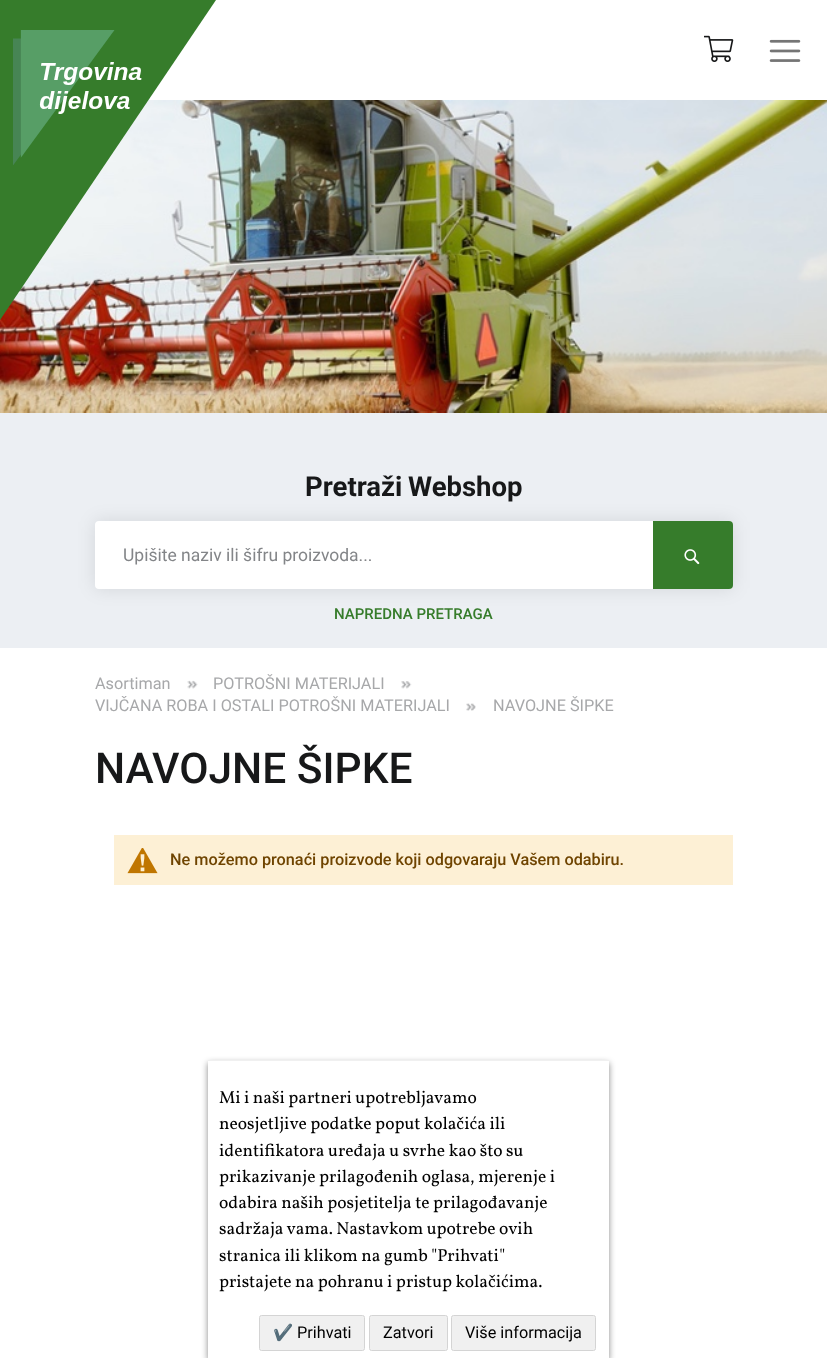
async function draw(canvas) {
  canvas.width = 827;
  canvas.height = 1358;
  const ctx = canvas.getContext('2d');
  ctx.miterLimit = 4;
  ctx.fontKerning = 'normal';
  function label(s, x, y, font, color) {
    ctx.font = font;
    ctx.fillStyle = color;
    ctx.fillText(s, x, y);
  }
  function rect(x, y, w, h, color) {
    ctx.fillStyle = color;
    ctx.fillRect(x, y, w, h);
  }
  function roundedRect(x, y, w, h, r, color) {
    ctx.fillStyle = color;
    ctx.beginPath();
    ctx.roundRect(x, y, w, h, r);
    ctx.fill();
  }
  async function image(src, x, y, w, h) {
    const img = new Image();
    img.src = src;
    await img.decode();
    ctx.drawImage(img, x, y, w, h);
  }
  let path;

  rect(0, 0, 827, 1358, '#fff');
  await image('assets/img4.png', 0, 100, 827, 313);
  ctx.fillStyle = '#367c2b';
  path = new Path2D('M0 0H216L0 320Z');
  ctx.fill(path);
  await image('assets/img1.png', 13, 30, 129, 135);
  await image('assets/img2.png', 704, 35, 30, 27);
  await image('assets/img3.png', 769, 39, 32, 23);
  rect(0, 413, 827, 235, '#eceff3');
  label('Pretraži', 305, 496, 'bold 27.5px Roboto', '#171819');
  label('Webshop', 408, 496, 'bold 27.5px Roboto', '#171819');
  ctx.fillStyle = '#0000001a';
  ctx.filter = 'blur(9px)';
  ctx.beginPath();
  ctx.roundRect(95, 521, 638, 68, 4);
  ctx.fill();
  ctx.filter = 'none';
  roundedRect(95, 521, 638, 68, 4, '#fff');
  label('Upišite naziv ili šifru proizvoda...', 123, 561, '17.5px Roboto', '#838588');
  ctx.fillStyle = '#367c2b';
  ctx.beginPath();
  ctx.roundRect(653, 521, 80, 68, [0, 4, 4, 0]);
  ctx.fill();
  await image('assets/img5.png', 684, 549, 16, 16);
  label('NAPREDNA PRETRAGA', 334, 619, '500 15px Roboto', '#367c2b');
  label('Asortiman', 95, 689, '16.25px Roboto', '#a7a8aa');
  await image('assets/img6.png', 187, 680, 11, 9);
  label('POTROŠNI MATERIJALI', 213, 689, '16.25px Roboto', '#a7a8aa');
  await image('assets/img7.png', 401, 681, 11, 8);
  label('VIJČANA ROBA I OSTALI POTROŠNI MATERIJALI', 95, 711, '16.25px Roboto', '#a7a8aa');
  await image('assets/img8.png', 466, 703, 10, 8);
  label('NAVOJNE ŠIPKE', 493, 711, '16.25px Roboto', '#a7a8aa');
  label('NAVOJNE ŠIPKE', 95, 783, '500 42.5px Roboto', '#171819');
  rect(114, 835, 619, 50, '#fdf0d5');
  await image('assets/img9.png', 127, 848, 31, 26);
  label('Ne možemo pronaći proizvode koji odgovaraju Vašem odabiru.', 170, 865, '500 16.25px Roboto', '#6f4400');
  ctx.fillStyle = '#00000078';
  ctx.filter = 'blur(3px)';
  ctx.beginPath();
  ctx.rect(208, 1063, 401, 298);
  ctx.fill();
  ctx.filter = 'none';
  rect(208, 1061, 401, 297, '#fff');
  rect(208, 1060, 401, 1, '#f0f0f0');
  label('Mi i naši partneri upotrebljavamo', 219, 1103, '17.5px Vollkorn', '#000');
  label('neosjetljive podatke poput kolačića ili', 219, 1129, '17.5px Vollkorn', '#000');
  label('identifikatora uređaja u svrhe kao što su', 219, 1156, '17.5px Vollkorn', '#000');
  label('prikazivanje prilagođenih oglasa, mjerenje i', 219, 1182, '17.5px Vollkorn', '#000');
  label('odabira naših posjetitelja te prilagođavanje', 219, 1208, '17.5px Vollkorn', '#000');
  label('sadržaja vama. Nastavkom upotrebe ovih', 219, 1234, '17.5px Vollkorn', '#000');
  label('stranica ili klikom na gumb "Prihvati"', 219, 1261, '17.5px Vollkorn', '#000');
  label('pristajete na pohranu i pristup kolačićima.', 219, 1287, '17.5px Vollkorn', '#000');
  ctx.fillStyle = '#f0f0f0';
  ctx.beginPath();
  ctx.roundRect(259.5, 1315.5, 105, 35, 2);
  ctx.fill();
  ctx.strokeStyle = '#d4d4d4';
  ctx.stroke();
  label('✔', 273, 1338, '16.25px Noto Color Emoji', '#000');
  label('Prihvati', 297, 1338, '16.25px Roboto', '#000');
  ctx.fillStyle = '#f0f0f0';
  ctx.beginPath();
  ctx.roundRect(369.5, 1315.5, 78, 35, 2);
  ctx.fill();
  ctx.stroke();
  label('Zatvori', 383, 1338, '16.25px Roboto', '#000');
  ctx.fillStyle = '#f0f0f0';
  ctx.beginPath();
  ctx.roundRect(451.5, 1315.5, 144, 35, 2);
  ctx.fill();
  ctx.stroke();
  label('Više informacija', 465, 1338, '16.25px Roboto', '#000');
}

draw(document.querySelector('canvas'));
